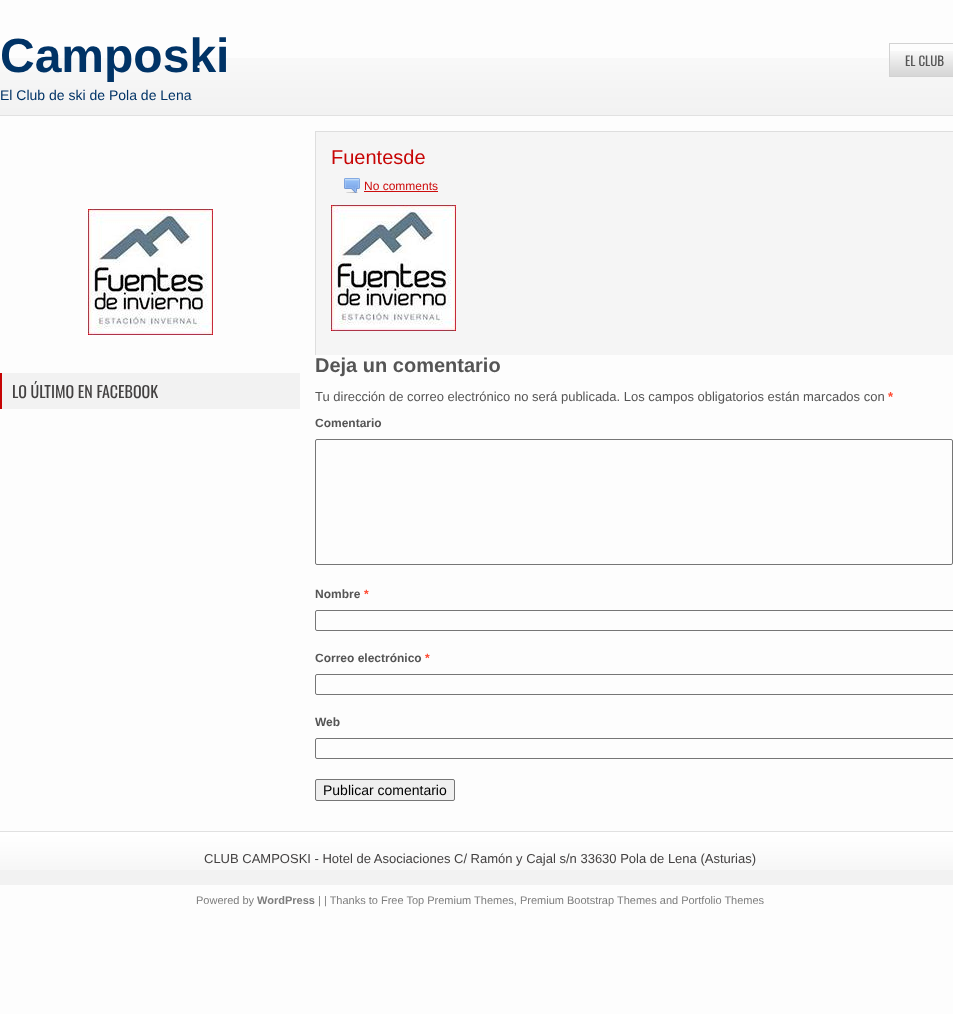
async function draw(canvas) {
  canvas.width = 953;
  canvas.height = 1014;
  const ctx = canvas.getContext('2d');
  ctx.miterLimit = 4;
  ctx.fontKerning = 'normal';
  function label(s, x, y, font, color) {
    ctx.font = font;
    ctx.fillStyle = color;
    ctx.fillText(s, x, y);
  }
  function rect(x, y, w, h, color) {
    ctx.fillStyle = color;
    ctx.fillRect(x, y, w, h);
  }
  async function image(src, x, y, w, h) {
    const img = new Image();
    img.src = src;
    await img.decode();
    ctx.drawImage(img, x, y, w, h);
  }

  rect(0, 0, 953, 1014, '#fdfdfd');
  await image('assets/img1.png', 0, 58, 953, 58);
  label('Camposki', 0, 72, 'bold 48px Liberation Sans', '#036');
  label('El Club de ski de Pola de Lena', 0, 100, '14px Liberation Sans', '#036');
  await image('assets/img2.png', 890, 51, 63, 25);
  ctx.strokeStyle = '#d2d2d2';
  ctx.strokeRect(889.5, 43.5, 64, 33);
  label('EL CLUB', 905, 66, '13px Oswald', '#555');
  await image('assets/img3.png', 88, 209, 125, 126);
  rect(2, 373, 298, 36, '#f2f2f2');
  rect(0, 373, 2, 36, '#c60303');
  label('LO ÚLTIMO EN FACEBOOK', 12, 398, '16px Oswald', '#434141');
  rect(316, 132, 637, 223, '#f5f5f5');
  rect(315, 131, 638, 1, '#dedede');
  rect(315, 131, 1, 224, '#dedede');
  label('Fuentesde', 331, 164, '20px Liberation Sans', '#c70505');
  await image('assets/img4.png', 344, 178, 16, 15);
  label('No comments', 364, 190, '12px Liberation Sans', '#ce0d0d');
  rect(364, 191, 74, 1, '#ce0d0d');
  await image('assets/img3.png', 331, 205, 125, 126);
  label('Deja un comentario', 315, 372, 'bold 20px Liberation Sans', '#555');
  label('Tu dirección de correo electrónico no será publicada. Los campos obligatorios están marcados con', 315, 401, '13px Liberation Sans', '#555');
  label('*', 888, 401, 'bold 13px Liberation Sans', '#ff4b33');
  label('Comentario', 315, 427, 'bold 12px Liberation Sans', '#555');
  ctx.beginPath();
  ctx.roundRect(315.5, 439.5, 637, 125, 1.5);
  ctx.strokeStyle = '#767676';
  ctx.stroke();
  label('Nombre', 315, 598, 'bold 12px Liberation Sans', '#555');
  label('*', 364, 598, 'bold 12px Liberation Sans', '#ff4b33');
  ctx.beginPath();
  ctx.roundRect(315.5, 610.5, 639, 20, 1.5);
  ctx.stroke();
  label('Correo electrónico', 315, 662, 'bold 12px Liberation Sans', '#555');
  label('*', 425, 662, 'bold 12px Liberation Sans', '#ff4b33');
  ctx.beginPath();
  ctx.roundRect(315.5, 674.5, 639, 20, 1.5);
  ctx.stroke();
  label('Web', 315, 726, 'bold 12px Liberation Sans', '#555');
  ctx.beginPath();
  ctx.roundRect(315.5, 738.5, 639, 20, 1.5);
  ctx.stroke();
  ctx.fillStyle = '#efefef';
  ctx.beginPath();
  ctx.roundRect(315.5, 779.5, 139, 21, 1.5);
  ctx.fill();
  ctx.stroke();
  label('Publicar comentario', 323, 795, '14px Liberation Sans', '#000');
  rect(0, 870, 953, 15, '#f2f2f2');
  await image('assets/img5.png', 0, 832, 953, 38);
  rect(0, 831, 953, 1, '#e1e1e1');
  label('CLUB CAMPOSKI - Hotel de Asociaciones C/ Ramón y Cajal s/n 33630 Pola de Lena (Asturias)', 204, 863, '13px Liberation Sans', '#434141');
  label('Powered by', 196, 904, '11px Liberation Sans', '#7d7d7d');
  label('WordPress', 257, 904, 'bold 11px Liberation Sans', '#7d7d7d');
  label('| | Thanks to Free Top Premium Themes, Premium Bootstrap Themes and Portfolio Themes', 318, 904, '11px Liberation Sans', '#7d7d7d');
  label('•', 197, 70, '10px Liberation Sans', '#fff');
}

draw(document.querySelector('canvas'));
